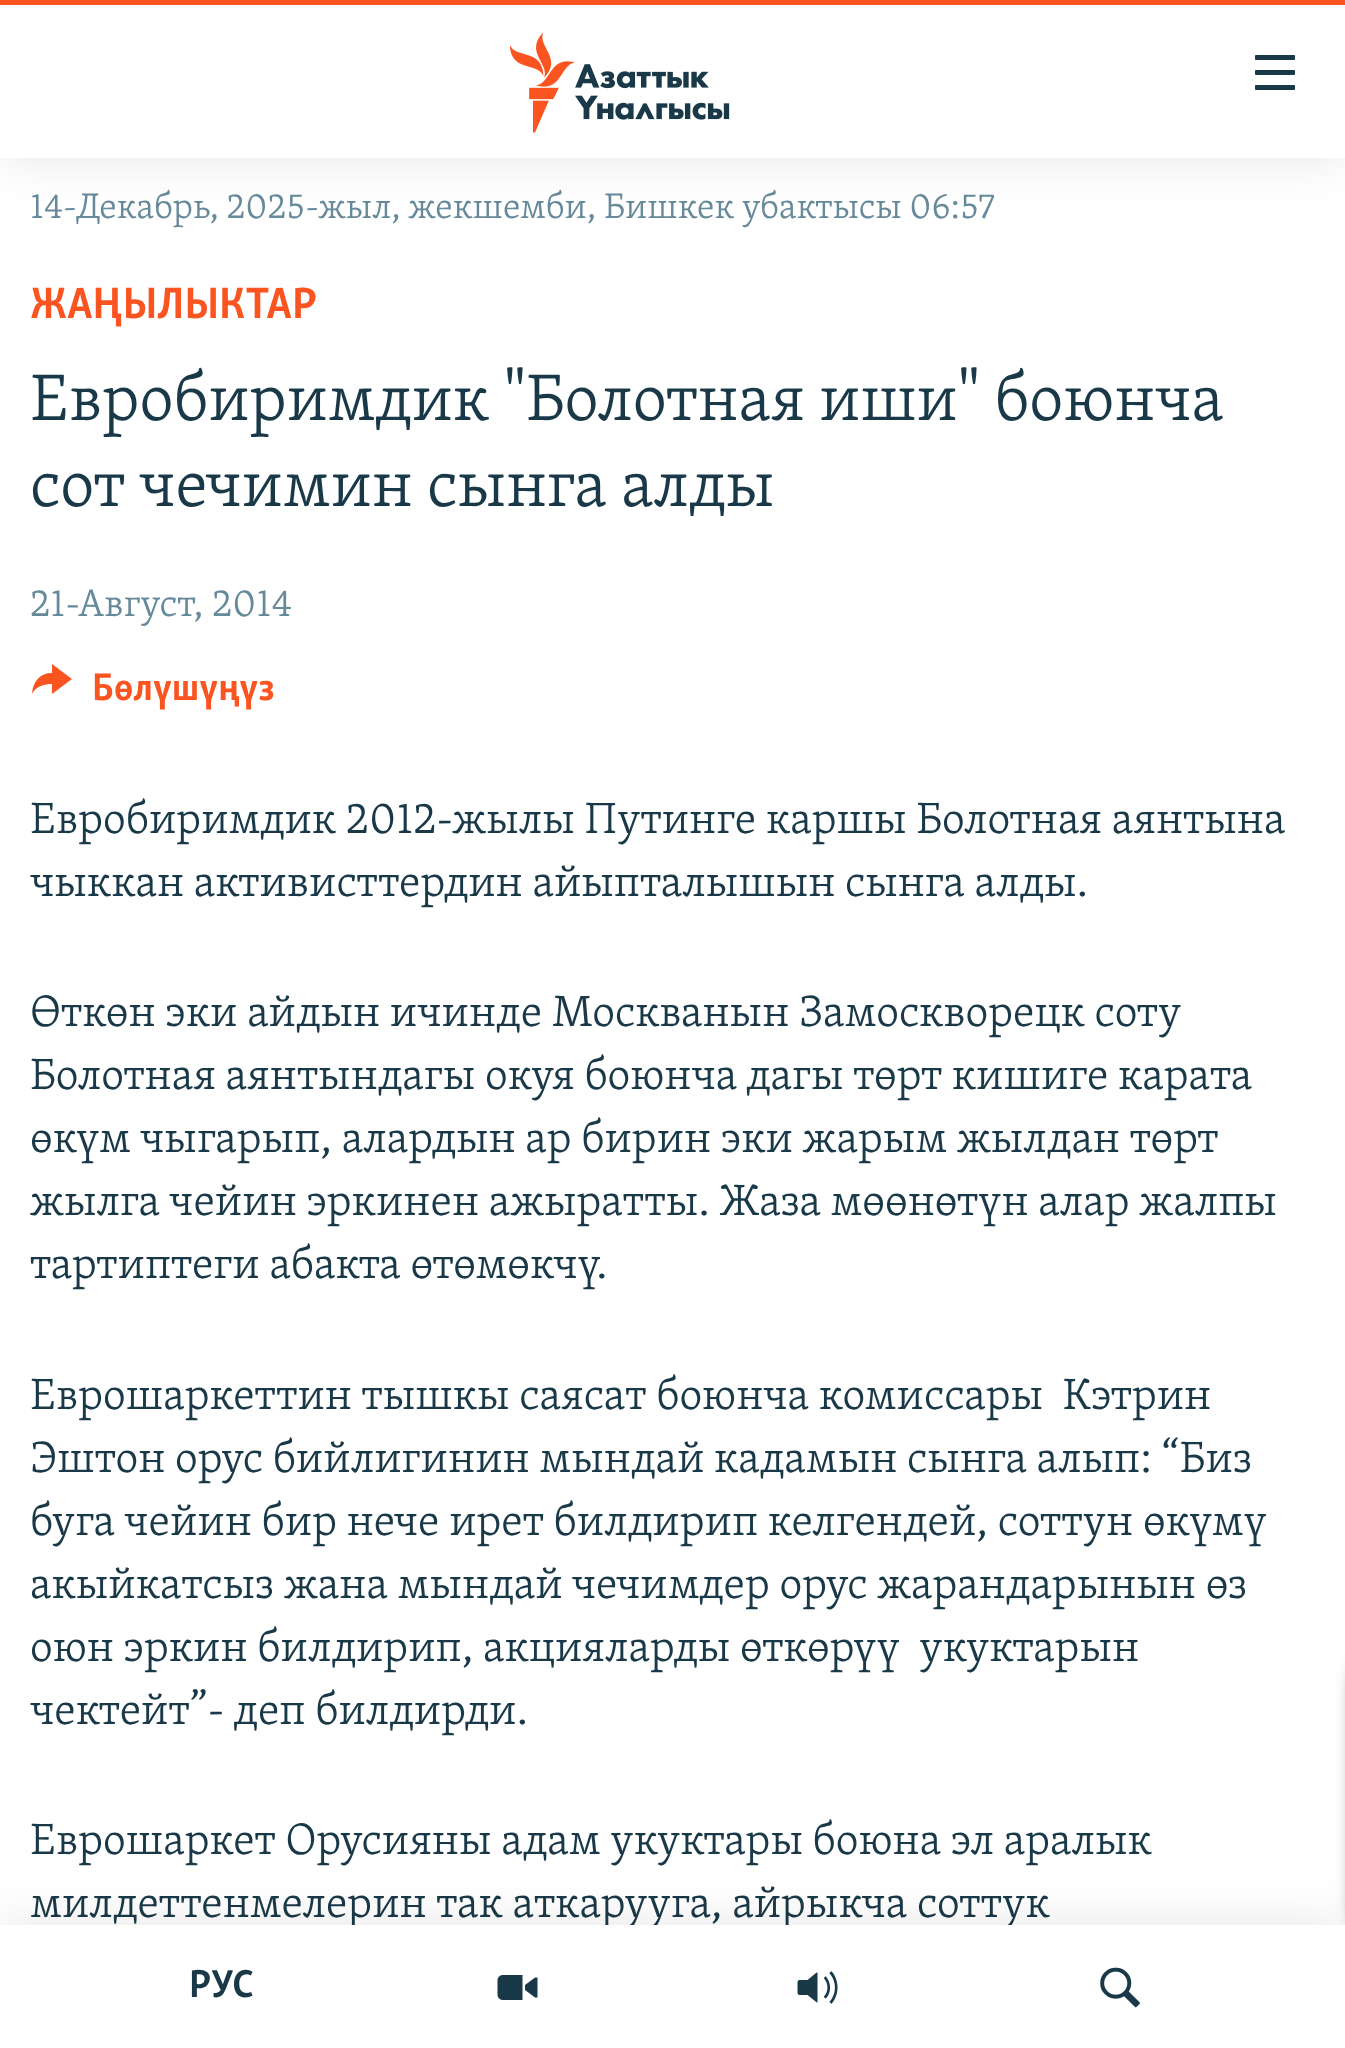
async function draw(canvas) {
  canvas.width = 1345;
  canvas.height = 2048;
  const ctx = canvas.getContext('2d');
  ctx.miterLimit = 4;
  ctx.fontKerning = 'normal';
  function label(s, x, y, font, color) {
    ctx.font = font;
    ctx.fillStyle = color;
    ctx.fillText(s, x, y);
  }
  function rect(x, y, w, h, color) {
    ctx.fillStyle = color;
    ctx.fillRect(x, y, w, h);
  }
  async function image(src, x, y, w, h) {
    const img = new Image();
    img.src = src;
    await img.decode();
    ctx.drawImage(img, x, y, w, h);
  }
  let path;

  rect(0, 0, 1345, 2048, '#fff');
  ctx.wordSpacing = '-0.25px';
  label('14-Декабрь, 2025-жыл, жекшемби, Бишкек убактысы 06:57', 30, 218, '300 36.55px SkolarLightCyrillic', '#678a9b');
  ctx.wordSpacing = '0px';
  label('ЖАҢЫЛЫКТАР', 30, 318, 'bold 45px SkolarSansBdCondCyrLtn', '#fa5420');
  label('Евробиримдик "Болотная иши" боюнча', 30, 420, '300 67.5px SkolarLightCyrillic', '#1a3948');
  label('сот чечимин сынга алды', 30, 506, '300 67.5px SkolarLightCyrillic', '#1a3948');
  label('21-Август, 2014', 30, 616, '300 39.5px SkolarLightCyrillic', '#678a9b');
  ctx.fillStyle = '#fa5420';
  path = new Path2D('M32 694C33 681 40 673 52 673V664L72 679L52 694V684C45 684 36 686 32 694Z');
  ctx.fill(path);
  label('Бөлүшүңүз', 92, 700, 'bold 39.5px SkolarSansBdCondCyrLtn', '#fa5420');
  label('Евробиримдик 2012-жылы Путинге каршы Болотная аянтына', 30, 833, '300 45px SkolarLightCyrillic', '#1a3948');
  label('чыккан активисттердин айыпталышын сынга алды.', 30, 896, '300 45px SkolarLightCyrillic', '#1a3948');
  label('Өткөн эки айдын ичинде Москванын Замоскворецк соту', 30, 1026, '300 45px SkolarLightCyrillic', '#1a3948');
  label('Болотная аянтындагы окуя боюнча дагы төрт кишиге карата', 30, 1089, '300 45px SkolarLightCyrillic', '#1a3948');
  label('өкүм чыгарып, алардын ар бирин эки жарым жылдан төрт', 30, 1152, '300 45px SkolarLightCyrillic', '#1a3948');
  label('жылга чейин эркинен ажыратты. Жаза мөөнөтүн алар жалпы', 30, 1215, '300 45px SkolarLightCyrillic', '#1a3948');
  label('тартиптеги абакта өтөмөкчү.', 30, 1278, '300 45px SkolarLightCyrillic', '#1a3948');
  label('Еврошаркеттин тышкы саясат боюнча комиссары  Кэтрин', 30, 1409, '300 45px SkolarLightCyrillic', '#1a3948');
  label('Эштон орус бийлигинин мындай кадамын сынга алып: “Биз', 30, 1472, '300 45px SkolarLightCyrillic', '#1a3948');
  label('буга чейин бир нече ирет билдирип келгендей, соттун өкүмү', 30, 1535, '300 45px SkolarLightCyrillic', '#1a3948');
  label('акыйкатсыз жана мындай чечимдер орус жарандарынын өз', 30, 1598, '300 45px SkolarLightCyrillic', '#1a3948');
  label('оюн эркин билдирип, акцияларды өткөрүү  укуктарын', 30, 1661, '300 45px SkolarLightCyrillic', '#1a3948');
  label('чектейт”- деп билдирди.', 30, 1724, '300 45px SkolarLightCyrillic', '#1a3948');
  label('Еврошаркет Орусияны адам укуктары боюна эл аралык', 30, 1854, '300 45px SkolarLightCyrillic', '#1a3948');
  label('милдеттенмелерин так аткарууга, айрыкча соттук', 30, 1917, '300 45px SkolarLightCyrillic', '#1a3948');
  ctx.fillStyle = '#000000d9';
  ctx.filter = 'blur(12.5px)';
  ctx.beginPath();
  ctx.roundRect(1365, 1670, 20, 255, 2.5);
  ctx.fill();
  ctx.filter = 'none';
  ctx.filter = 'blur(12.5px)';
  ctx.beginPath();
  ctx.roundRect(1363, 1670, 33, 255, 13);
  ctx.fill();
  ctx.filter = 'none';
  ctx.fillStyle = '#0000001a';
  ctx.filter = 'blur(25px)';
  ctx.beginPath();
  ctx.rect(0, 0, 1345, 158);
  ctx.fill();
  ctx.filter = 'none';
  rect(0, 5, 1345, 153, '#fff');
  rect(0, 0, 1345, 5, '#fa5420');
  await image('assets/img1.png', 510, 33, 220, 100);
  await image('assets/img2.png', 1255, 55, 40, 35);
  ctx.fillStyle = '#0000001a';
  ctx.filter = 'blur(25px)';
  ctx.beginPath();
  ctx.rect(0, 1925, 1345, 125);
  ctx.fill();
  ctx.filter = 'none';
  rect(0, 1925, 1345, 123, '#fff');
  label('РУС', 189, 1997, 'bold 40px SkolarSansBdCondCyrLtn', '#1a3948');
  await image('assets/img3.png', 497, 1975, 41, 25);
  await image('assets/img4.png', 797, 1971, 41, 33);
  await image('assets/img5.png', 1100, 1967, 40, 41);
}

draw(document.querySelector('canvas'));
